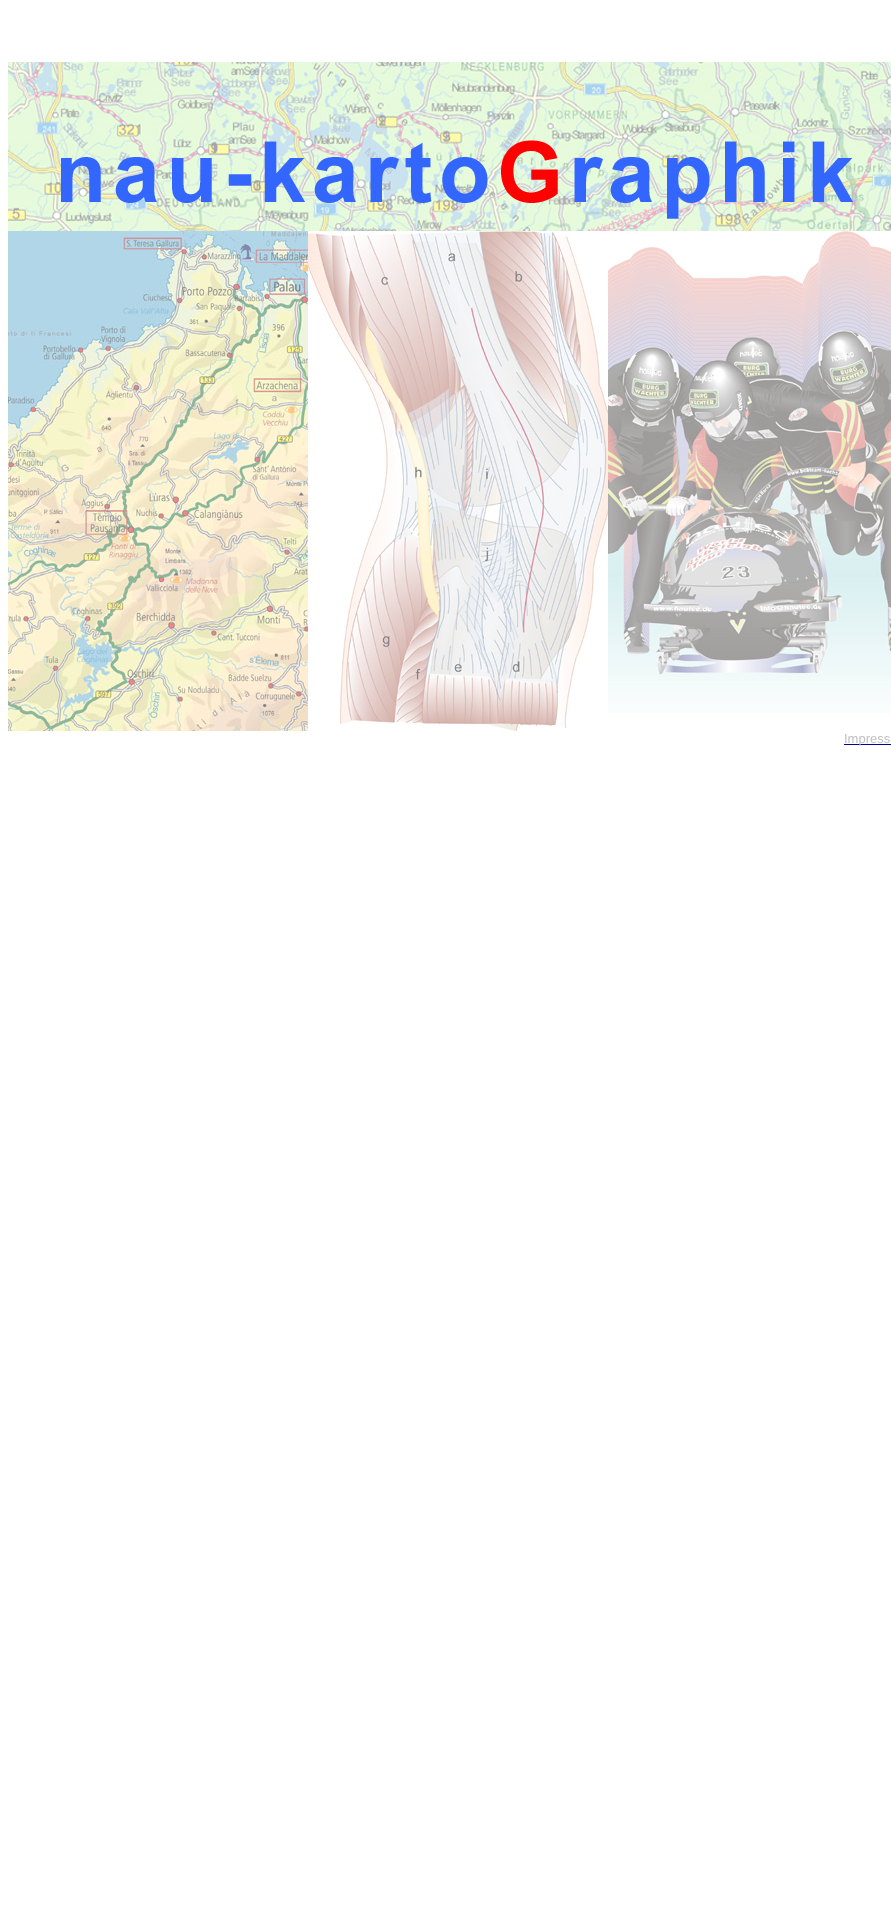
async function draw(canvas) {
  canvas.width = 891;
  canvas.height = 1926;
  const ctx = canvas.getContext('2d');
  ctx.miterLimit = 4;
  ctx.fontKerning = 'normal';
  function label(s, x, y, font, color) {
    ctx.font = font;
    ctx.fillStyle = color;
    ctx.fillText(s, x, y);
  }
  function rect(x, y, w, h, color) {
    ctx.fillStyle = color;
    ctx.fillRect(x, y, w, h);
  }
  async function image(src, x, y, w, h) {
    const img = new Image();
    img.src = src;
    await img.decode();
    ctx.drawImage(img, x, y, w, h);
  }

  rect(0, 0, 891, 1926, '#fff');
  await image('assets/img1.png', 8, 62, 883, 169);
  await image('assets/img2.png', 8, 231, 300, 500);
  await image('assets/img3.png', 308, 231, 300, 500);
  await image('assets/img4.png', 608, 231, 283, 483);
  rect(844, 744, 47, 1, '#009');
  label('Impress', 844, 743, '13px Liberation Sans', '#c0c0c0');
}

draw(document.querySelector('canvas'));
